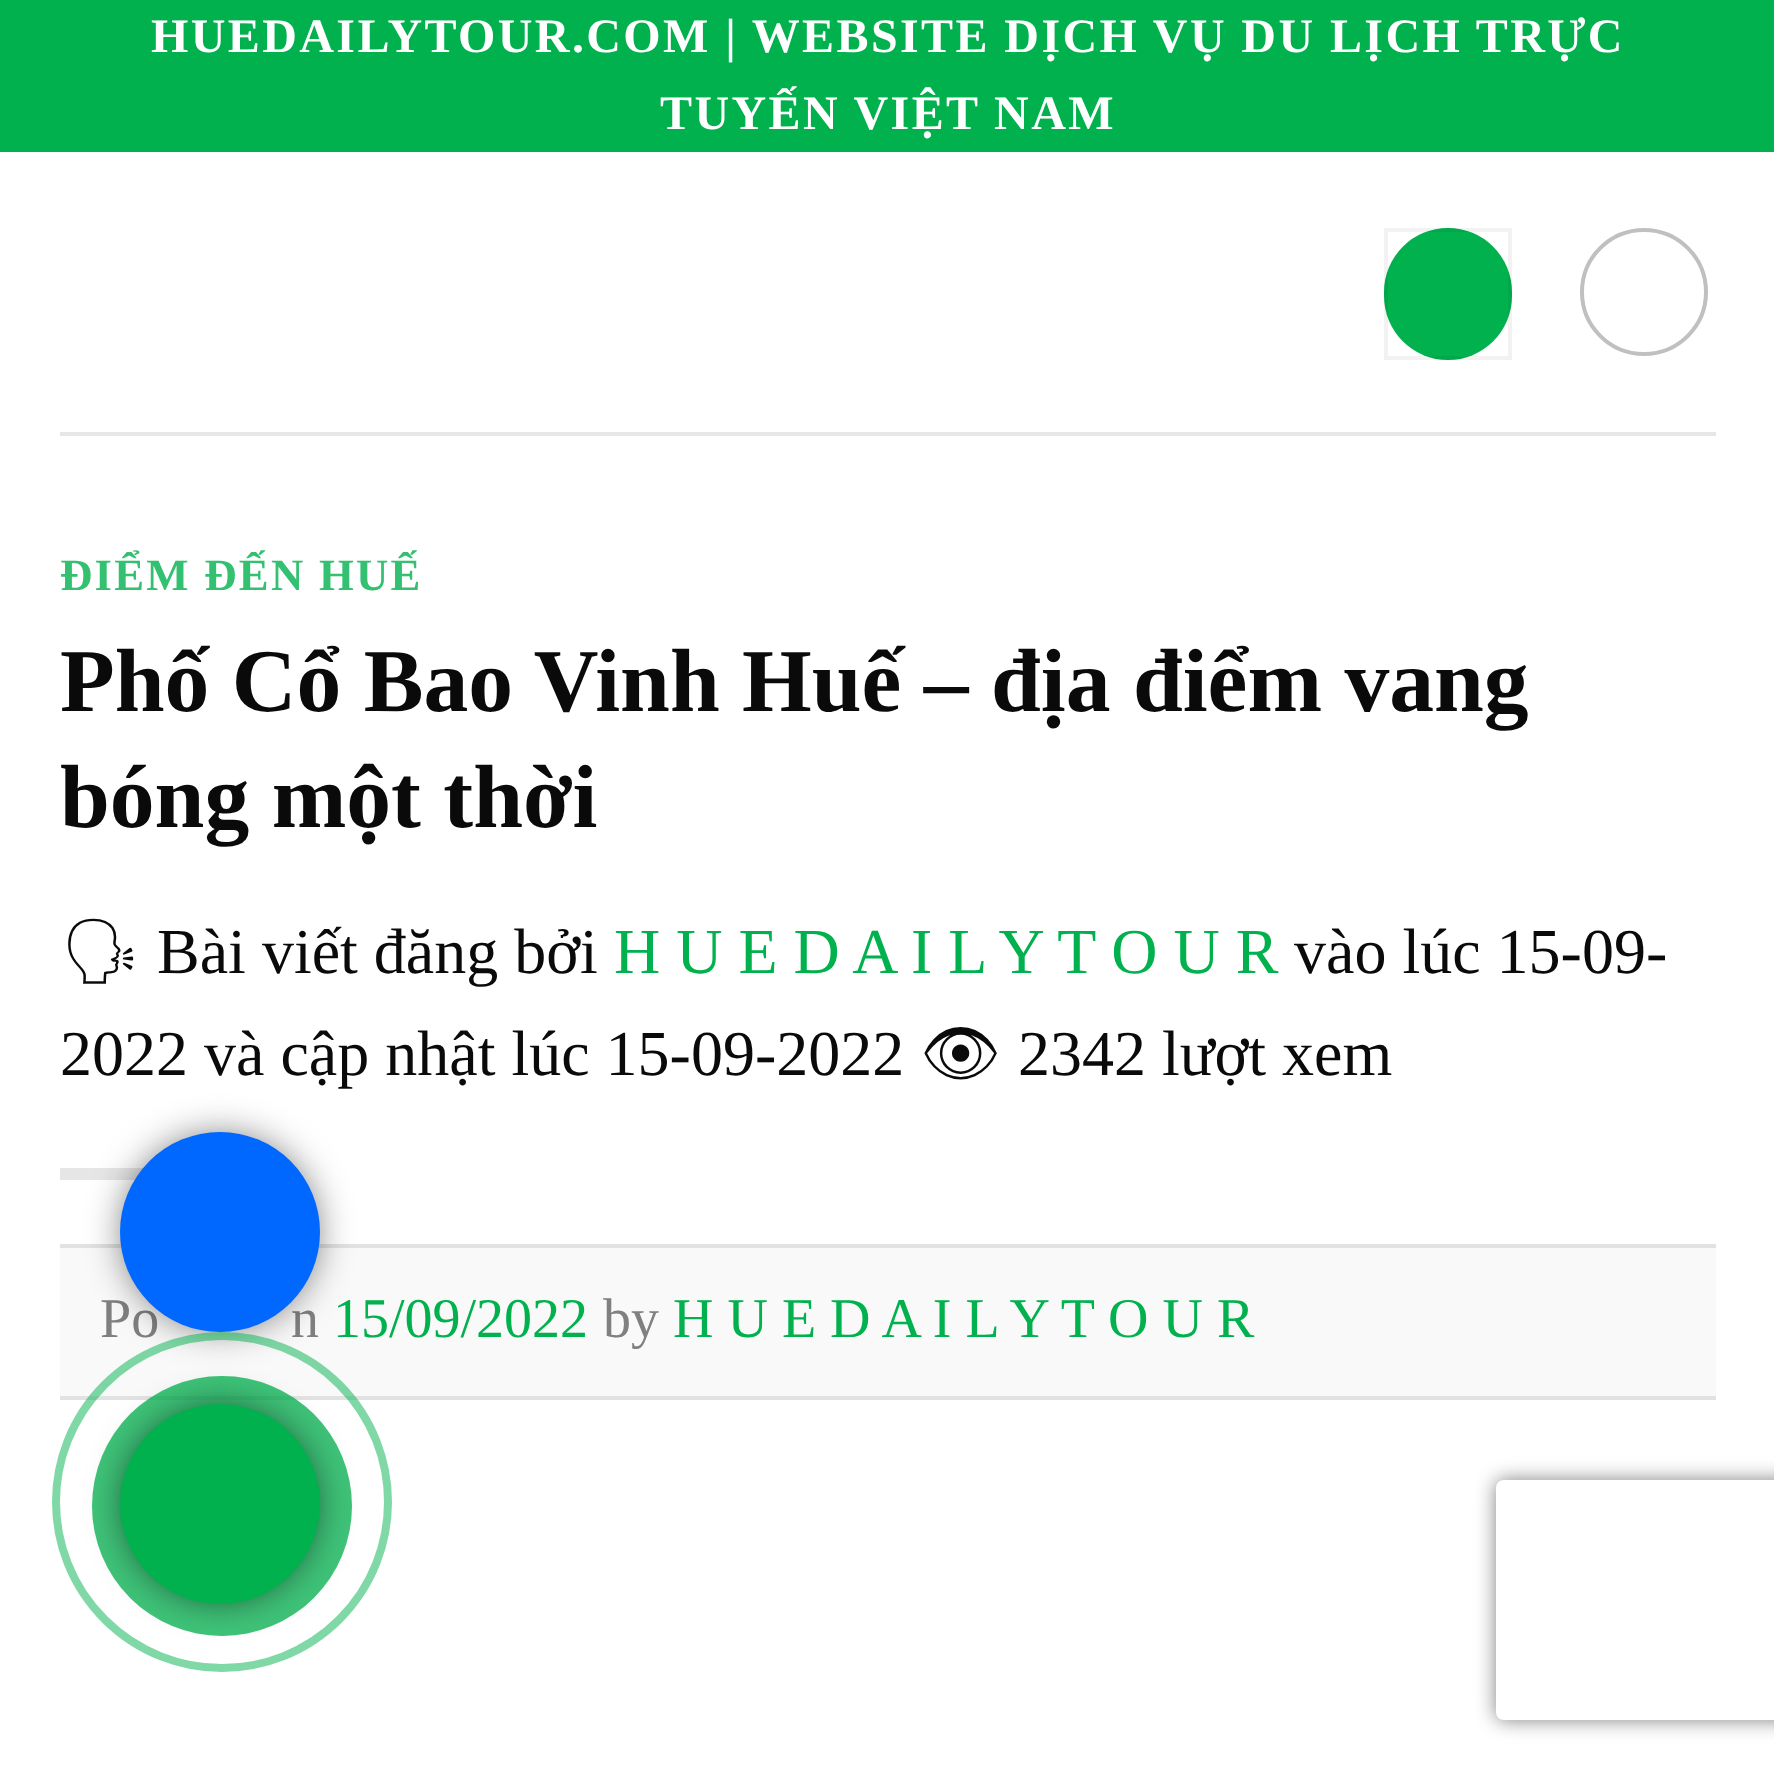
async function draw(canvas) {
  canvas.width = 1774;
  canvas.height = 1774;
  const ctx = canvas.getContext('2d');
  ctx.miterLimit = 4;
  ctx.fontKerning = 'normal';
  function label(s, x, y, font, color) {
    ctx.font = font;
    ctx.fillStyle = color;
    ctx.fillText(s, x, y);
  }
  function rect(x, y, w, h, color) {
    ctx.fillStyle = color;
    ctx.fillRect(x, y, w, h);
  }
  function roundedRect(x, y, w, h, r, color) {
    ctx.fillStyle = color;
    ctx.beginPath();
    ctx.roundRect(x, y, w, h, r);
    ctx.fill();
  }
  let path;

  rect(0, 0, 1774, 1774, '#fff');
  rect(0, 0, 1774, 152, '#00b14e');
  ctx.letterSpacing = '2.4px';
  label('HUEDAILYTOUR.COM | WEBSITE DỊCH VỤ DU LỊCH TRỰC', 151, 52, 'bold 48px Liberation Serif', '#fff');
  label('TUYẾN VIỆT NAM', 660, 129, 'bold 48px Liberation Serif', '#fff');
  roundedRect(1384, 228, 128, 132, 64, '#00b14e');
  ctx.strokeStyle = '#0000000d';
  ctx.lineWidth = 4;
  ctx.strokeRect(1386, 230, 124, 128);
  ctx.beginPath();
  ctx.arc(1644, 292, 62, 0, 2 * Math.PI);
  ctx.strokeStyle = '#c0c0c0';
  ctx.stroke();
  rect(60, 432, 1656, 4, '#e7e7e7');
  ctx.letterSpacing = '2.25px';
  label('ĐIỂM ĐẾN HUẾ', 60, 590, 'bold 44.75px Liberation Serif', '#33c171');
  ctx.letterSpacing = '0px';
  label('Phố Cổ Bao Vinh Huế – địa điểm vang', 60, 711, 'bold 89.6px Liberation Serif', '#0a0a0a');
  label('bóng một thời', 60, 827, 'bold 89.6px Liberation Serif', '#0a0a0a');
  label('🗣', 60, 973, '64px Noto Emoji', '#0a0a0a');
  label('Bài viết đăng bởi', 157, 973, '64px Liberation Serif', '#0a0a0a');
  label('H U E D A I L Y T O U R', 614, 973, '64px Liberation Serif', '#00b14e');
  label('vào lúc 15-09-', 1294, 973, '64px Liberation Serif', '#0a0a0a');
  label('2022 và cập nhật lúc 15-09-2022', 60, 1075, '64px Liberation Serif', '#0a0a0a');
  label('👁', 920, 1075, '64px Noto Emoji', '#0a0a0a');
  label('2342 lượt xem', 1018, 1075, '64px Liberation Serif', '#0a0a0a');
  rect(60, 1168, 84, 12, '#e6e6e6');
  rect(60, 1248, 1656, 148, '#f9f9f9');
  rect(60, 1244, 1656, 4, '#e2e2e2');
  rect(60, 1396, 1656, 4, '#e2e2e2');
  label('Po', 100, 1337, '56px Liberation Serif', '#808080');
  label('n', 291, 1337, '56px Liberation Serif', '#808080');
  label('15/09/2022', 333, 1337, '56px Liberation Serif', '#00b14e');
  label('by', 603, 1337, '56px Liberation Serif', '#808080');
  label('H U E D A I L Y T O U R', 673, 1337, '56px Liberation Serif', '#00b14e');
  ctx.fillStyle = '#02b14fc2';
  ctx.beginPath();
  ctx.arc(222, 1506, 130, 0, 2 * Math.PI);
  ctx.fill();
  ctx.fillStyle = '#000000b3';
  ctx.filter = 'blur(20px)';
  ctx.beginPath();
  ctx.roundRect(128, 1140, 184, 184, 92);
  ctx.fill();
  ctx.filter = 'none';
  ctx.fillStyle = '#0067ff';
  ctx.beginPath();
  ctx.arc(220, 1232, 100, 0, 2 * Math.PI);
  ctx.fill();
  ctx.fillStyle = '#000000b3';
  ctx.filter = 'blur(20px)';
  ctx.beginPath();
  ctx.roundRect(128, 1412, 184, 184, 92);
  ctx.fill();
  ctx.filter = 'none';
  ctx.fillStyle = '#00b14e';
  ctx.beginPath();
  ctx.arc(220, 1504, 100, 0, 2 * Math.PI);
  ctx.fill();
  ctx.beginPath();
  ctx.arc(222, 1502, 166, 0, 2 * Math.PI);
  ctx.strokeStyle = '#02b14f80';
  ctx.lineWidth = 8;
  ctx.stroke();
  ctx.save();
  path = new Path2D('M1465 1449H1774V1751H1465ZM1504 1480H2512C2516.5 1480 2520 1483.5 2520 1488V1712C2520 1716.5 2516.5 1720 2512 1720H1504C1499.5 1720 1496 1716.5 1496 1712V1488C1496 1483.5 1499.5 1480 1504 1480Z');
  ctx.clip(path, 'evenodd');
  ctx.fillStyle = '#808080';
  ctx.filter = 'blur(10px)';
  ctx.beginPath();
  ctx.roundRect(1496, 1480, 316, 240, 8);
  ctx.fill();
  ctx.filter = 'none';
  ctx.restore();
}

draw(document.querySelector('canvas'));
